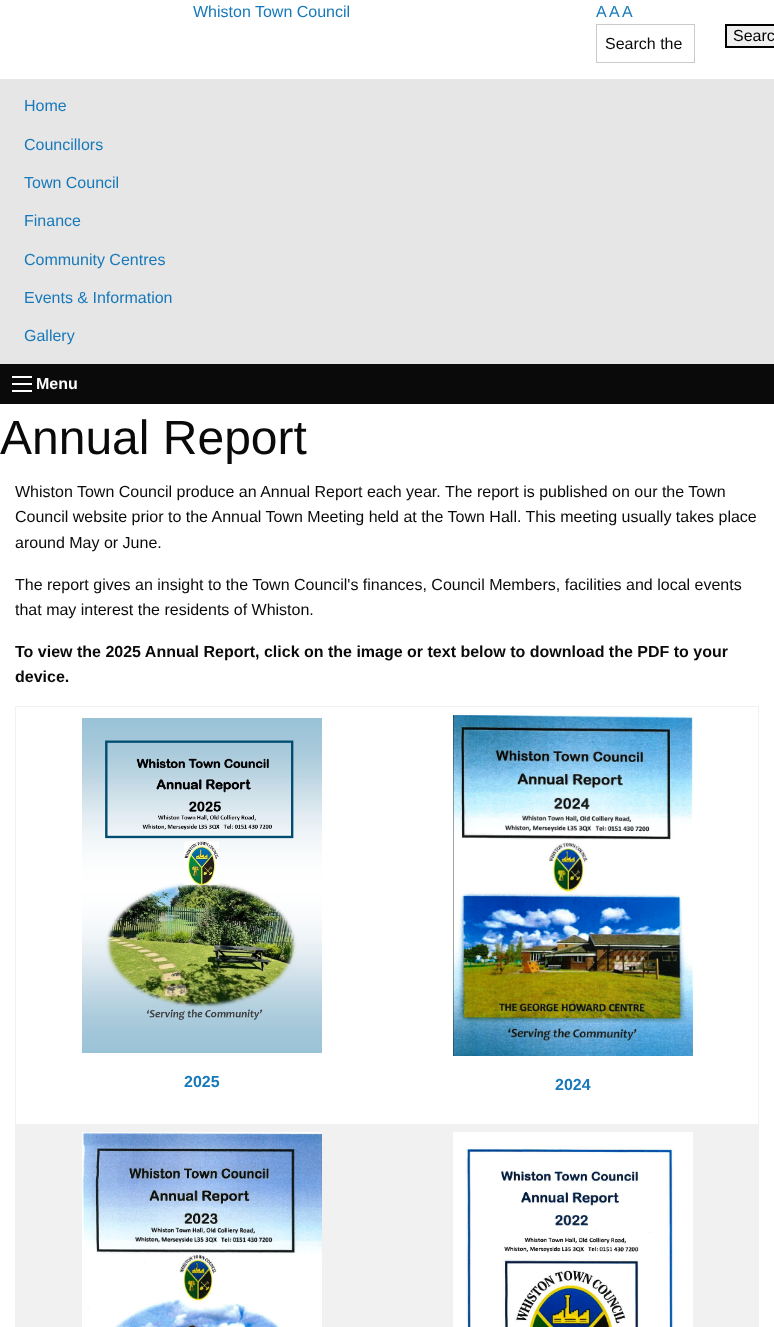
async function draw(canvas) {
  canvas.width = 774;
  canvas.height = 1327;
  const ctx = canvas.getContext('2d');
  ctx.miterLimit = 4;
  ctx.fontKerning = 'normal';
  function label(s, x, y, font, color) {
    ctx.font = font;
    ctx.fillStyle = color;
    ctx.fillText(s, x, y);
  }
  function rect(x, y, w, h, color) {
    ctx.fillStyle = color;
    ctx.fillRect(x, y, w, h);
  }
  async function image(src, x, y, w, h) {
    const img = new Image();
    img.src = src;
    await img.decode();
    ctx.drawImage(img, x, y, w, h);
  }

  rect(0, 0, 774, 1327, '#fff');
  label('Whiston Town Council', 193, 17, '16px Liberation Sans', '#1779ba');
  label('A', 596, 17, '16px Liberation Sans', '#1779ba');
  label('A', 609, 17, '16px Liberation Sans', '#1779ba');
  label('A', 622, 17, '16px Liberation Sans', '#1779ba');
  ctx.fillStyle = '#efefef';
  ctx.beginPath();
  ctx.rect(726, 25, 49, 22);
  ctx.fill();
  ctx.strokeStyle = '#000';
  ctx.lineWidth = 2;
  ctx.stroke();
  label('Searc', 733, 41, '16px Liberation Sans', '#000');
  ctx.strokeStyle = '#cacaca';
  ctx.lineWidth = 1;
  ctx.strokeRect(596.5, 24.5, 98, 38);
  label('Search the', 605, 49, '16px Liberation Sans', '#0a0a0a');
  rect(0, 79, 774, 285, '#e6e6e6');
  label('Home', 24, 111, '16px Liberation Sans', '#1779ba');
  label('Councillors', 24, 150, '16px Liberation Sans', '#1779ba');
  label('Town Council', 24, 188, '16px Liberation Sans', '#1779ba');
  label('Finance', 24, 226, '16px Liberation Sans', '#1779ba');
  label('Community Centres', 24, 265, '16px Liberation Sans', '#1779ba');
  label('Events & Information', 24, 303, '16px Liberation Sans', '#1779ba');
  label('Gallery', 24, 341, '16px Liberation Sans', '#1779ba');
  rect(0, 364, 774, 40, '#0a0a0a');
  rect(12, 390, 20, 2, '#fefefe');
  rect(12, 383, 20, 2, '#fefefe');
  rect(12, 376, 20, 2, '#fefefe');
  label('Menu', 36, 389, 'bold 16px Liberation Sans', '#fefefe');
  label('Annual Report', 0, 454, '48px Liberation Sans', '#0a0a0a');
  label('Whiston Town Council produce an Annual Report each year. The report is published on our the Town', 15, 497, '16px Liberation Sans', '#0a0a0a');
  label('Council website prior to the Annual Town Meeting held at the Town Hall. This meeting usually takes place', 15, 522, '16px Liberation Sans', '#0a0a0a');
  label('around May or June.', 15, 548, '16px Liberation Sans', '#0a0a0a');
  label('The report gives an insight to the Town Council\'s finances, Council Members, facilities and local events', 15, 590, '16px Liberation Sans', '#0a0a0a');
  label('that may interest the residents of Whiston.', 15, 615, '16px Liberation Sans', '#0a0a0a');
  label('To view the 2025 Annual Report, click on the image or text below to download the PDF to your', 15, 657, 'bold 16px Liberation Sans', '#0a0a0a');
  label('device.', 15, 682, 'bold 16px Liberation Sans', '#0a0a0a');
  rect(15, 706, 744, 1, '#f1f1f1');
  rect(758, 706, 1, 621, '#f1f1f1');
  rect(15, 706, 1, 621, '#f1f1f1');
  await image('assets/img1.png', 82, 718, 240, 335);
  label('2025', 184, 1087, 'bold 16px Liberation Sans', '#1779ba');
  await image('assets/img2.png', 453, 715, 240, 341);
  label('2024', 555, 1090, 'bold 16px Liberation Sans', '#1779ba');
  rect(16, 1124, 742, 203, '#f1f1f1');
  await image('assets/img3.png', 82, 1132, 240, 195);
  await image('assets/img4.png', 453, 1132, 240, 195);
}

draw(document.querySelector('canvas'));
